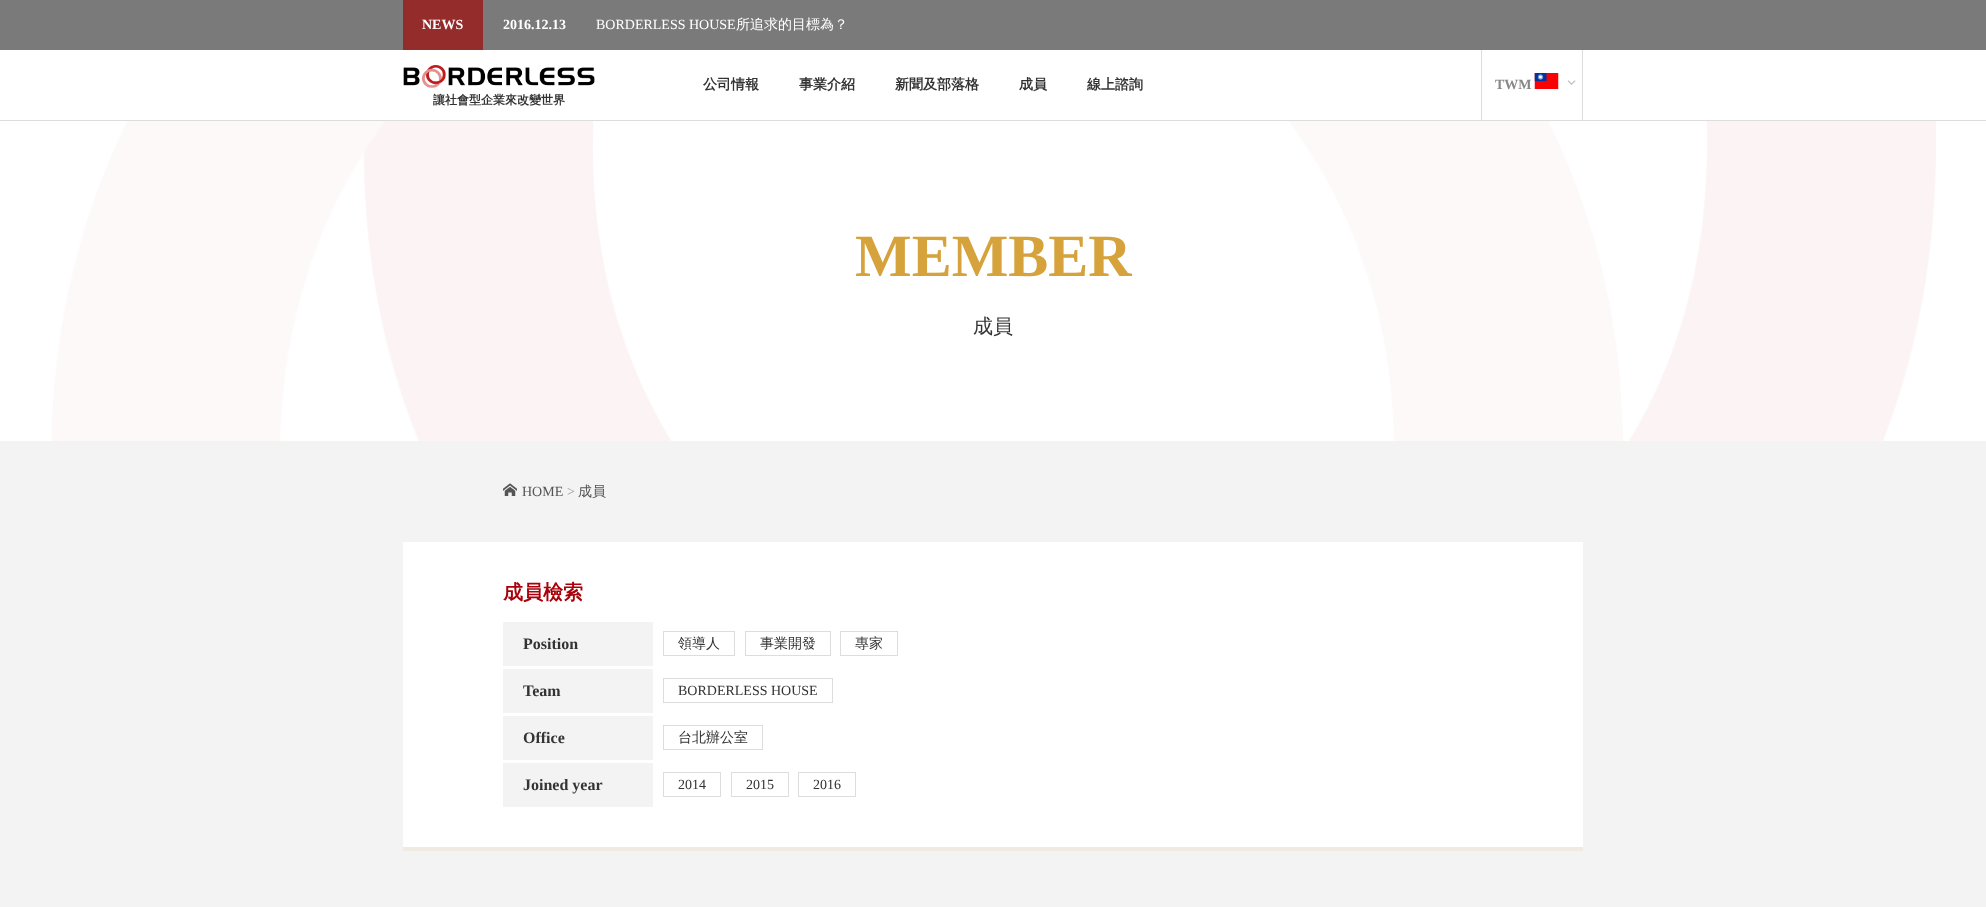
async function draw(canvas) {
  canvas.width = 1986;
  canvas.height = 907;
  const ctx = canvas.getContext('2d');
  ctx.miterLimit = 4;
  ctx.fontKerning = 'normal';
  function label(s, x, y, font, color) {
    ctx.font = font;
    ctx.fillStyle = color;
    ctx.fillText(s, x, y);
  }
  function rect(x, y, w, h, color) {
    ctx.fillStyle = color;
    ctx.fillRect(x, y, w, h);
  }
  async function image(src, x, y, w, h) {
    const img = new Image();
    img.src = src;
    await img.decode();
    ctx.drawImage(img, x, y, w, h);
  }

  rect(0, 0, 1986, 907, '#f3f3f3');
  rect(0, 0, 1986, 50, '#7a7a7a');
  rect(403, 0, 80, 50, '#942c2c');
  label('NEWS', 422, 29, 'bold 14px Liberation Serif', '#fff');
  label('2016.12.13', 503, 29, 'bold 14px Liberation Serif', '#fff');
  label('BORDERLESS HOUSE', 596, 29, '14px Liberation Serif', '#fff');
  label('所追求的目標為？', 736, 29, '500 14px WenQuanYi Zen Hei', '#fff');
  rect(0, 50, 1986, 70, '#fff');
  rect(0, 120, 1986, 1, '#ddd');
  label('公司情報', 703, 89, 'bold 14px WenQuanYi Zen Hei', '#333');
  label('事業介紹', 799, 89, 'bold 14px WenQuanYi Zen Hei', '#333');
  label('新聞及部落格', 895, 89, 'bold 14px WenQuanYi Zen Hei', '#333');
  label('成員', 1019, 89, 'bold 14px WenQuanYi Zen Hei', '#333');
  label('線上諮詢', 1087, 89, 'bold 14px WenQuanYi Zen Hei', '#333');
  rect(1582, 50, 1, 70, '#ddd');
  rect(1481, 50, 1, 70, '#ddd');
  label('TWM', 1495, 89, 'bold 14px Liberation Serif', '#888');
  await image('assets/img1.png', 1534, 73, 25, 16);
  await image('assets/img2.png', 1567, 80, 9, 5);
  await image('assets/img3.png', 403, 65, 192, 23);
  label('讓社會型企業來改變世界', 433, 104, 'bold 12px WenQuanYi Zen Hei', '#333');
  rect(0, 121, 1986, 320, '#fff');
  await image('assets/img4.png', 52, 121, 1884, 320);
  label('MEMBER', 855, 276, 'bold 60px Liberation Serif', '#d5a23c');
  label('成員', 973, 333, '500 20px WenQuanYi Zen Hei', '#333');
  await image('assets/img5.png', 503, 483, 14, 13);
  label('HOME', 522, 496, '14px Liberation Serif', '#555');
  label('>', 567, 496, '14px Liberation Serif', '#969696');
  label('成員', 578, 496, '500 14px WenQuanYi Zen Hei', '#555');
  rect(403, 542, 1180, 305, '#fff');
  label('成員檢索', 503, 599, 'bold 20px WenQuanYi Zen Hei', '#a90009');
  rect(503, 622, 150, 44, '#f3f3f3');
  label('Position', 523, 649, 'bold 16px Liberation Serif', '#333');
  ctx.strokeStyle = '#ddd';
  ctx.strokeRect(663.5, 631.5, 71, 24);
  label('領導人', 678, 648, '500 14px WenQuanYi Zen Hei', '#333');
  ctx.strokeRect(745.5, 631.5, 85, 24);
  label('事業開發', 760, 648, '500 14px WenQuanYi Zen Hei', '#333');
  ctx.strokeRect(840.5, 631.5, 57, 24);
  label('專家', 855, 648, '500 14px WenQuanYi Zen Hei', '#333');
  rect(503, 669, 150, 44, '#f3f3f3');
  label('Team', 523, 696, 'bold 16px Liberation Serif', '#333');
  ctx.strokeRect(663.5, 678.5, 169, 24);
  label('BORDERLESS HOUSE', 678, 695, '14px Liberation Serif', '#333');
  rect(503, 716, 150, 44, '#f3f3f3');
  label('Office', 523, 743, 'bold 16px Liberation Serif', '#333');
  ctx.strokeRect(663.5, 725.5, 99, 24);
  label('台北辦公室', 678, 742, '500 14px WenQuanYi Zen Hei', '#333');
  rect(503, 763, 150, 44, '#f3f3f3');
  label('Joined year', 523, 790, 'bold 16px Liberation Serif', '#333');
  ctx.strokeRect(663.5, 772.5, 57, 24);
  label('2014', 678, 789, '14px Liberation Serif', '#333');
  ctx.strokeRect(731.5, 772.5, 57, 24);
  label('2015', 746, 789, '14px Liberation Serif', '#333');
  ctx.strokeRect(798.5, 772.5, 57, 24);
  label('2016', 813, 789, '14px Liberation Serif', '#333');
  rect(403, 847, 1180, 4, '#efebe3');
}

draw(document.querySelector('canvas'));
